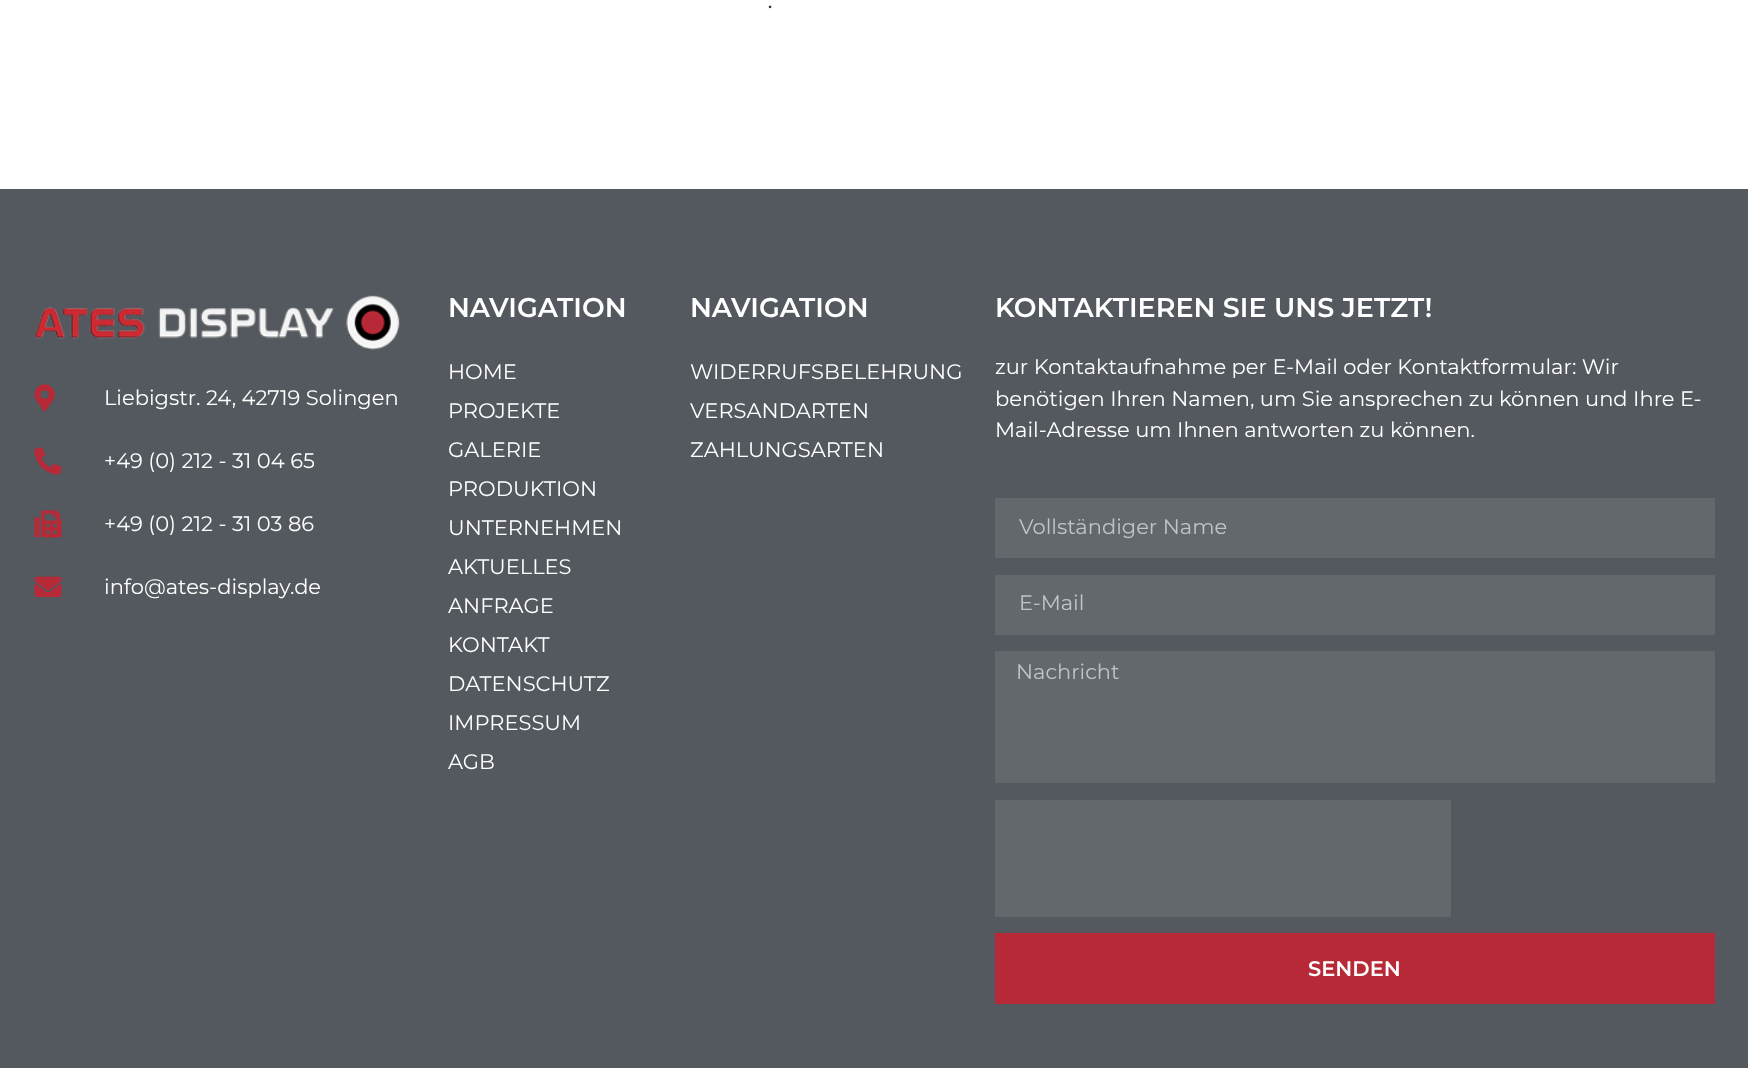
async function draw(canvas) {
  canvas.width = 1748;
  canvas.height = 1068;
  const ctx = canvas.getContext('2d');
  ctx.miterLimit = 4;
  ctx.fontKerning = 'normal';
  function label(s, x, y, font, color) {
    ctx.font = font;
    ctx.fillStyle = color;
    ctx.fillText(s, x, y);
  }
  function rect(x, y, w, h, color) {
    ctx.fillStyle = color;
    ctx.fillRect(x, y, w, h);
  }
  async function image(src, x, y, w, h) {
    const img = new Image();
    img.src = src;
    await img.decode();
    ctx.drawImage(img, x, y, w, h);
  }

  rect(0, 0, 1748, 1068, '#fff');
  label('.', 767, 8, '24px Roboto', '#333');
  rect(0, 189, 1748, 879, '#54595f');
  await image('assets/img1.png', 34, 295, 366, 55);
  await image('assets/img2.png', 34, 384, 21, 28);
  label('Liebigstr. 24, 42719 Solingen', 104, 405, '21px Montserrat', '#fff');
  await image('assets/img3.png', 34, 447, 28, 28);
  label('+49 (0) 212 - 31 04 65', 104, 468, '21px Montserrat', '#fff');
  await image('assets/img4.png', 34, 510, 28, 28);
  label('+49 (0) 212 - 31 03 86', 104, 531, '21px Montserrat', '#fff');
  await image('assets/img5.png', 34, 576, 28, 21);
  label('info@ates-display.de', 104, 594, '21px Montserrat', '#fff');
  label('NAVIGATION', 448, 317, '600 27px Montserrat', '#fff');
  label('HOME', 448, 379, '21px Montserrat', '#fff');
  label('PROJEKTE', 448, 418, '21px Montserrat', '#fff');
  label('GALERIE', 448, 457, '21px Montserrat', '#fff');
  label('PRODUKTION', 448, 496, '21px Montserrat', '#fff');
  label('UNTERNEHMEN', 448, 535, '21px Montserrat', '#fff');
  label('AKTUELLES', 448, 574, '21px Montserrat', '#fff');
  label('ANFRAGE', 448, 613, '21px Montserrat', '#fff');
  label('KONTAKT', 448, 652, '21px Montserrat', '#fff');
  label('DATENSCHUTZ', 448, 691, '21px Montserrat', '#fff');
  label('IMPRESSUM', 448, 730, '21px Montserrat', '#fff');
  label('AGB', 448, 769, '21px Montserrat', '#fff');
  label('NAVIGATION', 690, 317, '600 27px Montserrat', '#fff');
  label('WIDERRUFSBELEHRUNG', 690, 379, '21px Montserrat', '#fff');
  label('VERSANDARTEN', 690, 418, '21px Montserrat', '#fff');
  label('ZAHLUNGSARTEN', 690, 457, '21px Montserrat', '#fff');
  label('KONTAKTIEREN SIE UNS JETZT!', 995, 317, '600 27px Montserrat', '#fff');
  label('zur Kontaktaufnahme per E-Mail oder Kontaktformular: Wir', 995, 374, '21px Montserrat', '#fff');
  label('benötigen Ihren Namen, um Sie ansprechen zu können und Ihre E-', 995, 406, '21px Montserrat', '#fff');
  label('Mail-Adresse um Ihnen antworten zu können.', 995, 437, '21px Montserrat', '#fff');
  rect(995, 498, 720, 60, '#63686d');
  label('Vollständiger Name', 1019, 534, '21px Montserrat', '#c1c3c5');
  rect(995, 575, 720, 60, '#63686d');
  label('E-Mail', 1019, 610, '21px Montserrat', '#c1c3c5');
  rect(995, 651, 720, 132, '#63686d');
  label('Nachricht', 1016, 679, '21px Montserrat', '#c1c3c5');
  rect(995, 800, 456, 117, '#63686d');
  rect(995, 933, 720, 71, '#b72937');
  label('SENDEN', 1308, 976, '600 21px Montserrat', '#fff');
}

draw(document.querySelector('canvas'));
